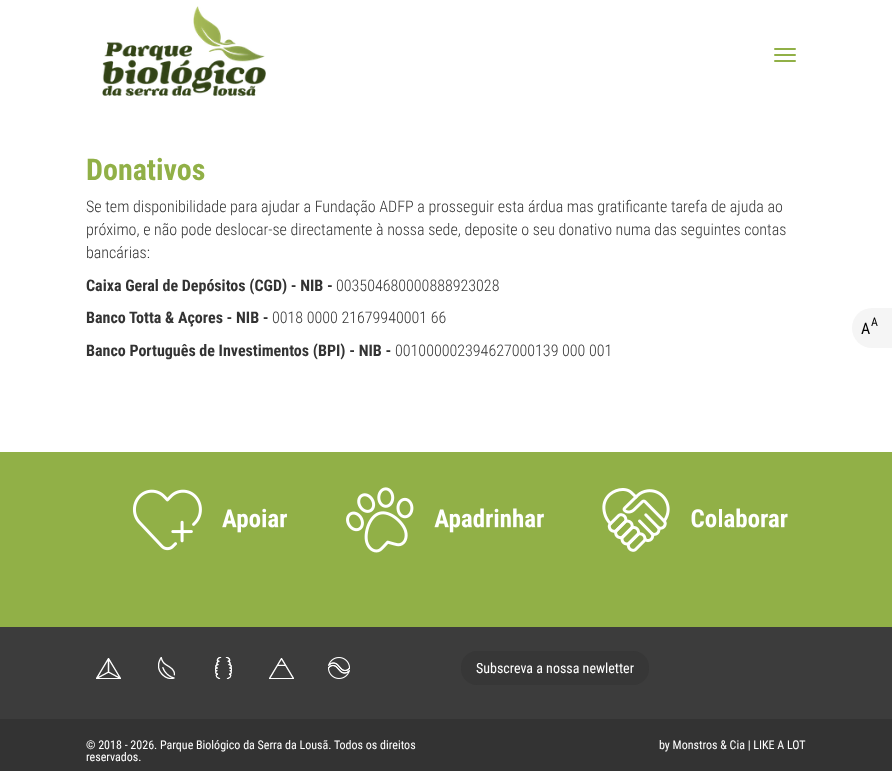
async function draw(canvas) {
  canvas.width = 892;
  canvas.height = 771;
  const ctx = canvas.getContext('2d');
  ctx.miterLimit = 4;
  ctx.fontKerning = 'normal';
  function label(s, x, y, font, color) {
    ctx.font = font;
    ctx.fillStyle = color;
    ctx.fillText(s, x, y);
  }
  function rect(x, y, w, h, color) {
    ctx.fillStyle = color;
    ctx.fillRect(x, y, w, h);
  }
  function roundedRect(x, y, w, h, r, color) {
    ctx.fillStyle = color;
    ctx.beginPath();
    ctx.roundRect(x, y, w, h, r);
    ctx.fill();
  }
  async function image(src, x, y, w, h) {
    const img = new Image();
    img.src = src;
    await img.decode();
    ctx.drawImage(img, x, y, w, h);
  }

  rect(0, 0, 892, 771, '#fff');
  await image('assets/img1.png', 102, 6, 164, 90);
  roundedRect(774, 48, 22, 2, 1, '#91b047');
  roundedRect(774, 54, 22, 2, 1, '#91b047');
  roundedRect(774, 60, 22, 2, 1, '#91b047');
  label('Donativos', 86, 180, 'bold 30px Roboto Condensed', '#91b047');
  label('Se tem disponibilidade para ajudar a Fundação ADFP a prosseguir esta árdua mas gratificante tarefa de ajuda ao', 86, 212, '300 16px Roboto Condensed', '#333');
  label('próximo, e não pode deslocar-se directamente à nossa sede, deposite o seu donativo numa das seguintes contas', 86, 235, '300 16px Roboto Condensed', '#333');
  label('bancárias:', 86, 258, '300 16px Roboto Condensed', '#333');
  label('Caixa Geral de Depósitos (CGD) - NIB -', 86, 291, 'bold 16px Roboto Condensed', '#333');
  label('003504680000888923028', 336, 291, '300 16px Roboto Condensed', '#333');
  label('Banco Totta & Açores - NIB -', 86, 323, 'bold 16px Roboto Condensed', '#333');
  label('0018 0000 21679940001 66', 272, 323, '300 16px Roboto Condensed', '#333');
  label('Banco Português de Investimentos (BPI) - NIB -', 86, 356, 'bold 16px Roboto Condensed', '#333');
  label('001000002394627000139 000 001', 395, 356, '300 16px Roboto Condensed', '#333');
  ctx.fillStyle = '#f5f5f5';
  ctx.beginPath();
  ctx.roundRect(852, 308, 40, 40, [20, 0, 0, 20]);
  ctx.fill();
  label('A', 861, 334, '16px Roboto Condensed', '#000');
  label('A', 871, 326, '12px Roboto Condensed', '#000');
  rect(0, 452, 892, 175, '#91b047');
  await image('assets/img2.png', 132, 489, 155, 62);
  await image('assets/img3.png', 346, 487, 198, 66);
  await image('assets/img4.png', 602, 488, 186, 64);
  rect(0, 627, 892, 92, '#3c3c3c');
  await image('assets/img5.png', 96, 658, 25, 21);
  await image('assets/img6.png', 158, 657, 17, 22);
  await image('assets/img7.png', 215, 657, 17, 22);
  await image('assets/img8.png', 269, 658, 25, 21);
  await image('assets/img9.png', 328, 657, 22, 22);
  roundedRect(461, 651, 188, 34, 16, '#373737');
  label('Subscreva a nossa newletter', 476, 673, '14px Roboto Condensed', '#fff');
  rect(0, 719, 892, 52, '#333');
  label('© 2018 - 2026. Parque Biológico da Serra da Lousã. Todos os direitos', 86, 749, '12px Roboto Condensed', '#fff');
  label('reservados.', 86, 761, '12px Roboto Condensed', '#fff');
  label('by Monstros & Cia | LIKE A LOT', 659, 749, '12px Roboto Condensed', '#fff');
}

draw(document.querySelector('canvas'));
